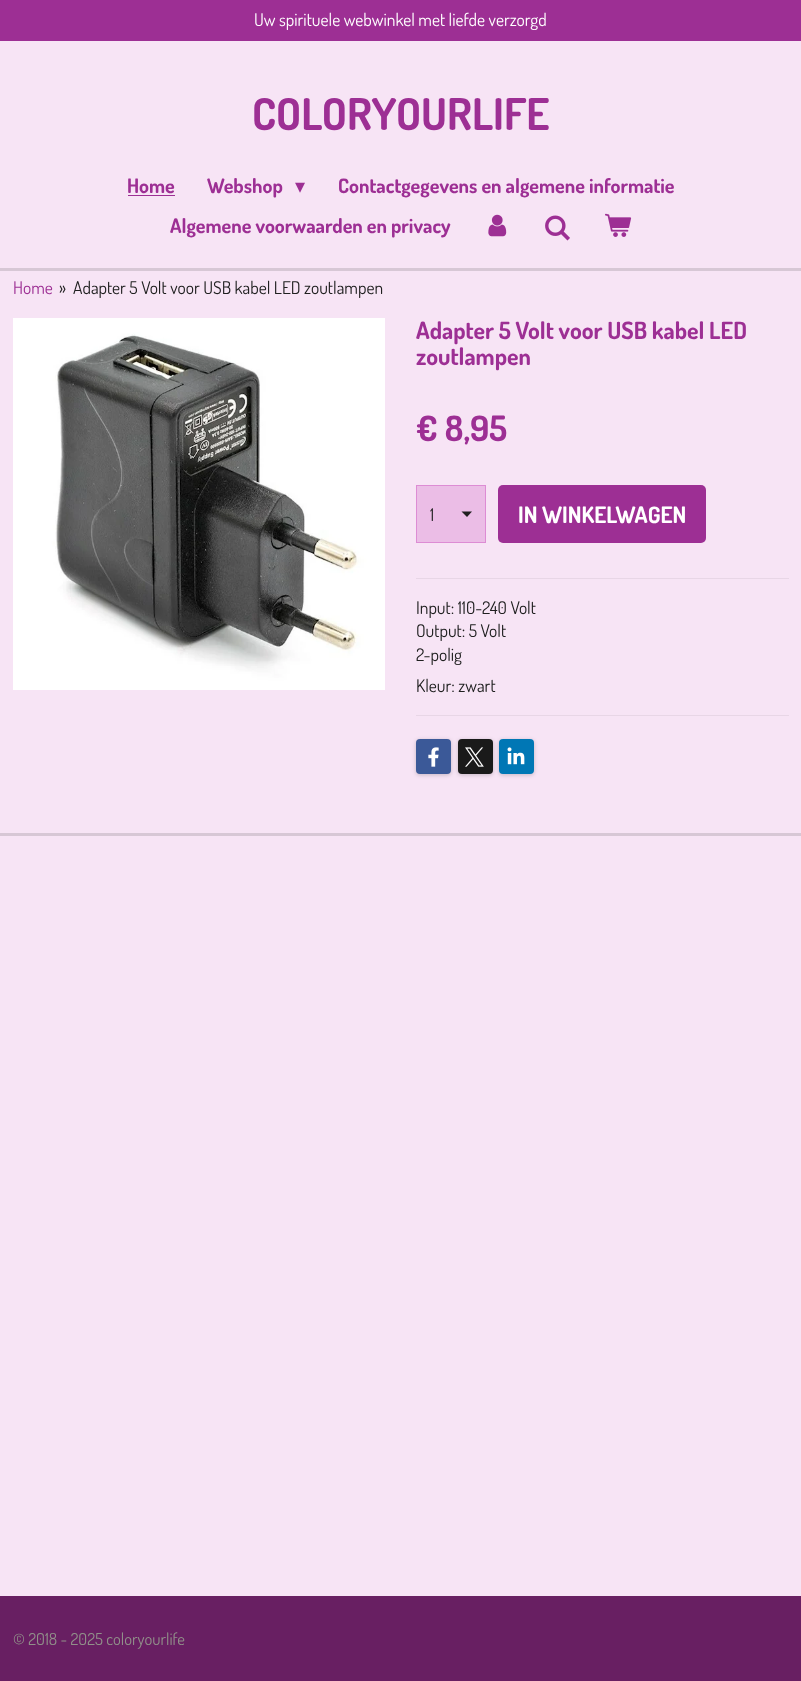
async function draw(canvas) {
  canvas.width = 801;
  canvas.height = 1681;
  const ctx = canvas.getContext('2d');
  ctx.miterLimit = 4;
  ctx.fontKerning = 'normal';
  function label(s, x, y, font, color) {
    ctx.font = font;
    ctx.fillStyle = color;
    ctx.fillText(s, x, y);
  }
  function rect(x, y, w, h, color) {
    ctx.fillStyle = color;
    ctx.fillRect(x, y, w, h);
  }
  function roundedRect(x, y, w, h, r, color) {
    ctx.fillStyle = color;
    ctx.beginPath();
    ctx.roundRect(x, y, w, h, r);
    ctx.fill();
  }
  async function image(src, x, y, w, h) {
    const img = new Image();
    img.src = src;
    await img.decode();
    ctx.drawImage(img, x, y, w, h);
  }
  let path;

  rect(0, 0, 801, 1681, '#f7e4f5');
  rect(0, 0, 801, 41, '#9d2f94');
  label('Uw spirituele webwinkel met liefde verzorgd', 254, 26, '17.5px Dosis', '#fff');
  label('COLORYOURLIFE', 252, 130, 'bold 43.75px Dosis', '#9d2f94');
  label('Home', 127, 193, 'bold 20px Dosis', '#9d2f94');
  rect(128, 195, 47, 1, '#9d2f94');
  label('Webshop', 207, 193, 'bold 20px Dosis', '#9d2f94');
  label('▾', 295, 193, '20px DejaVu Sans', '#9d2f94');
  label('Contactgegevens en algemene informatie', 338, 193, 'bold 20px Dosis', '#9d2f94');
  label('Algemene voorwaarden en privacy', 170, 233, 'bold 20px Dosis', '#9d2f94');
  await image('assets/img1.png', 488, 214, 19, 23);
  await image('assets/img2.png', 545, 215, 25, 26);
  await image('assets/img3.png', 605, 213, 27, 24);
  rect(0, 268, 801, 3, '#d7c7d5');
  rect(0, 833, 801, 3, '#d7c7d5');
  label('Home', 13, 294, '17.5px Dosis', '#9d2f94');
  label('»', 59, 294, '17.5px Dosis', '#202020');
  label('Adapter 5 Volt voor USB kabel LED zoutlampen', 73, 294, '17.5px Dosis', '#202020');
  await image('assets/img4.png', 13, 318, 372, 372);
  label('Adapter 5 Volt voor USB kabel LED', 416, 339, 'bold 23.75px Dosis', '#9d2f94');
  label('zoutlampen', 416, 365, 'bold 23.75px Dosis', '#9d2f94');
  label('€ 8,95', 416, 441, 'bold 35px Dosis', '#9d2f94');
  rect(417, 486, 68, 56, '#ebbde6');
  ctx.fillStyle = '#202020';
  path = new Path2D('M467 517L461.5 511.5H472Z');
  ctx.fill(path);
  ctx.strokeStyle = '#dd8cd4';
  ctx.strokeRect(416.5, 485.5, 69, 57);
  label('1', 430, 521, '17.5px Dosis', '#202020');
  roundedRect(498, 485, 208, 58, 5, '#9d2f94');
  label('IN WINKELWAGEN', 518, 523, 'bold 22.75px Dosis', '#fff');
  rect(416, 578, 373, 1, '#e8d6e6');
  label('Input: 110-240 Volt', 416, 614, '17.5px Dosis', '#202020');
  label('Output: 5 Volt', 416, 637, '17.5px Dosis', '#202020');
  label('2-polig', 416, 661, '17.5px Dosis', '#202020');
  label('Kleur: zwart', 416, 692, '17.5px Dosis', '#202020');
  rect(416, 715, 373, 1, '#e8d6e6');
  ctx.fillStyle = '#00000033';
  ctx.filter = 'blur(2px)';
  ctx.beginPath();
  ctx.roundRect(416, 740, 35, 35, 4);
  ctx.fill();
  ctx.filter = 'none';
  roundedRect(416, 739, 35, 35, 4, '#3b5998');
  await image('assets/img5.png', 428, 747, 11, 20);
  ctx.fillStyle = '#00000033';
  ctx.filter = 'blur(2px)';
  ctx.beginPath();
  ctx.roundRect(458, 740, 35, 35, 4);
  ctx.fill();
  ctx.filter = 'none';
  roundedRect(458, 739, 35, 35, 4, '#1a1a1a');
  await image('assets/img6.png', 465, 747, 19, 20);
  ctx.fillStyle = '#00000033';
  ctx.filter = 'blur(2px)';
  ctx.beginPath();
  ctx.roundRect(499, 740, 35, 35, 4);
  ctx.fill();
  ctx.filter = 'none';
  roundedRect(499, 739, 35, 35, 4, '#0077b5');
  await image('assets/img7.png', 507, 747, 18, 18);
  rect(0, 1596, 801, 85, '#681f62');
  label('© 2018 - 2025 coloryourlife', 13, 1645, '16.6px Dosis', '#91908a');
}

draw(document.querySelector('canvas'));
